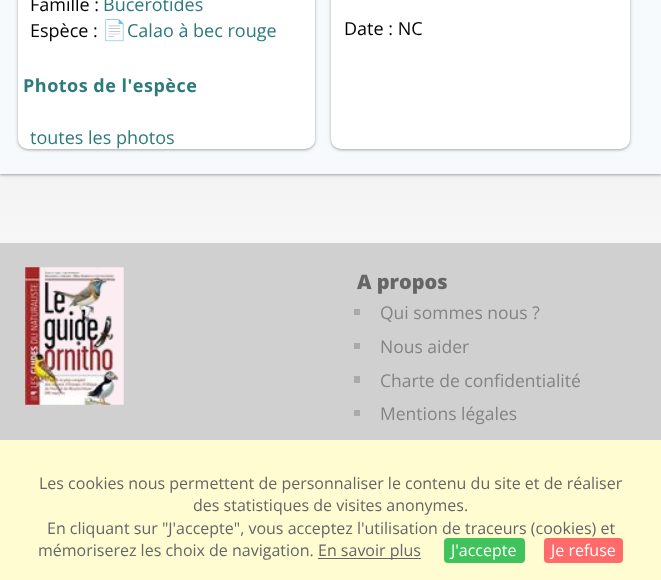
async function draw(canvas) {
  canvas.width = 661;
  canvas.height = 580;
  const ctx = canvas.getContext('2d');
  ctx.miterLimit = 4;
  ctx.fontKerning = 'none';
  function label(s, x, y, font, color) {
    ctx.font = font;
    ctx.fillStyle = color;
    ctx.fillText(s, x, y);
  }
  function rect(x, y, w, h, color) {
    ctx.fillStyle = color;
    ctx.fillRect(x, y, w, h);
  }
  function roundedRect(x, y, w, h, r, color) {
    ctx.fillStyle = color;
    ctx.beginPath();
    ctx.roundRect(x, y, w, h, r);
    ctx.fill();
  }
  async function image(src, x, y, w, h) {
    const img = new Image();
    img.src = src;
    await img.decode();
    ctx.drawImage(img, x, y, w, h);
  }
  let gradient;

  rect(0, 0, 661, 580, '#fff');
  gradient = ctx.createLinearGradient(331, -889, 331, 580);
  gradient.addColorStop(0, '#bbb');
  gradient.addColorStop(0.21, '#bbb');
  gradient.addColorStop(0.38, '#ddd');
  gradient.addColorStop(0.9, '#fff');
  gradient.addColorStop(1, '#fff');
  ctx.fillStyle = gradient;
  ctx.fillRect(0, 174, 661, 69);
  ctx.fillStyle = '#0000003d';
  ctx.filter = 'blur(1px)';
  ctx.beginPath();
  ctx.rect(0, -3, 661, 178);
  ctx.fill();
  ctx.filter = 'none';
  ctx.fillStyle = '#0000001f';
  ctx.filter = 'blur(2px)';
  ctx.beginPath();
  ctx.rect(0, -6, 661, 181);
  ctx.fill();
  ctx.filter = 'none';
  rect(0, 0, 661, 174, '#f7fafc');
  ctx.fillStyle = '#0000003d';
  ctx.filter = 'blur(1px)';
  ctx.beginPath();
  ctx.roundRect(18, -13, 297, 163, 10);
  ctx.fill();
  ctx.filter = 'none';
  ctx.fillStyle = '#0000001f';
  ctx.filter = 'blur(2px)';
  ctx.beginPath();
  ctx.roundRect(18, -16, 297, 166, 10);
  ctx.fill();
  ctx.filter = 'none';
  roundedRect(18, -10, 297, 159, 10, '#fff');
  label('Famille :', 30, 11, '18px Open Sans', '#000');
  label('Bucérotidés', 103, 11, '18px Open Sans', '#2c7a7b');
  label('Espèce :', 30, 37, '18px Open Sans', '#000');
  label('📄', 102, 37, '20px Noto Color Emoji', '#2c7a7b');
  label('Calao à bec rouge', 127, 37, '18px Open Sans', '#2c7a7b');
  ctx.letterSpacing = '0.5px';
  label('Photos de l\'espèce', 23, 92, 'bold 18px Open Sans', '#2c7a7b');
  ctx.letterSpacing = '0px';
  label('toutes les photos', 30, 144, '18px Open Sans', '#2c7a7b');
  ctx.fillStyle = '#0000003d';
  ctx.filter = 'blur(1px)';
  ctx.beginPath();
  ctx.roundRect(331, -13, 299, 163, 10);
  ctx.fill();
  ctx.filter = 'none';
  ctx.fillStyle = '#0000001f';
  ctx.filter = 'blur(2px)';
  ctx.beginPath();
  ctx.roundRect(331, -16, 299, 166, 10);
  ctx.fill();
  ctx.filter = 'none';
  roundedRect(331, -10, 299, 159, 10, '#fff');
  label('Date : NC', 344, 35, '18px Open Sans', '#000');
  rect(0, 243, 661, 197, '#d0d0d0');
  await image('assets/img1.png', 25, 267, 99, 138);
  label('A propos', 357, 289, '800 20px Open Sans', '#666');
  rect(354, 309, 6, 6, '#aaa');
  label('Qui sommes nous ?', 380, 319, '17.5px Open Sans', '#848484');
  rect(354, 343, 6, 6, '#aaa');
  label('Nous aider', 380, 353, '17.5px Open Sans', '#848484');
  rect(354, 376, 6, 7, '#aaa');
  label('Charte de confidentialité', 380, 387, '17.5px Open Sans', '#848484');
  rect(354, 410, 6, 6, '#aaa');
  label('Mentions légales', 380, 420, '17.5px Open Sans', '#848484');
  rect(0, 440, 661, 140, '#fffcd1');
  label('Les cookies nous permettent de personnaliser le contenu du site et de réaliser', 39, 489, '16px Open Sans', '#666');
  label('des statistiques de visites anonymes.', 193, 511, '16px Open Sans', '#666');
  label('En cliquant sur "J\'accepte", vous acceptez l\'utilisation de traceurs (cookies) et', 47, 534, '16px Open Sans', '#666');
  label('mémoriserez les choix de navigation.', 38, 556, '16px Open Sans', '#666');
  rect(318, 558, 103, 1, '#666');
  label('En savoir plus', 318, 556, '16px Open Sans', '#666');
  roundedRect(444, 538, 81, 25, 4, '#3fc35a');
  label('J\'accepte', 451, 556, '16px Open Sans', '#fff');
  roundedRect(544, 538, 79, 25, 4, '#ff6b6b');
  label('Je refuse', 551, 556, '16px Open Sans', '#fff');
}

draw(document.querySelector('canvas'));
